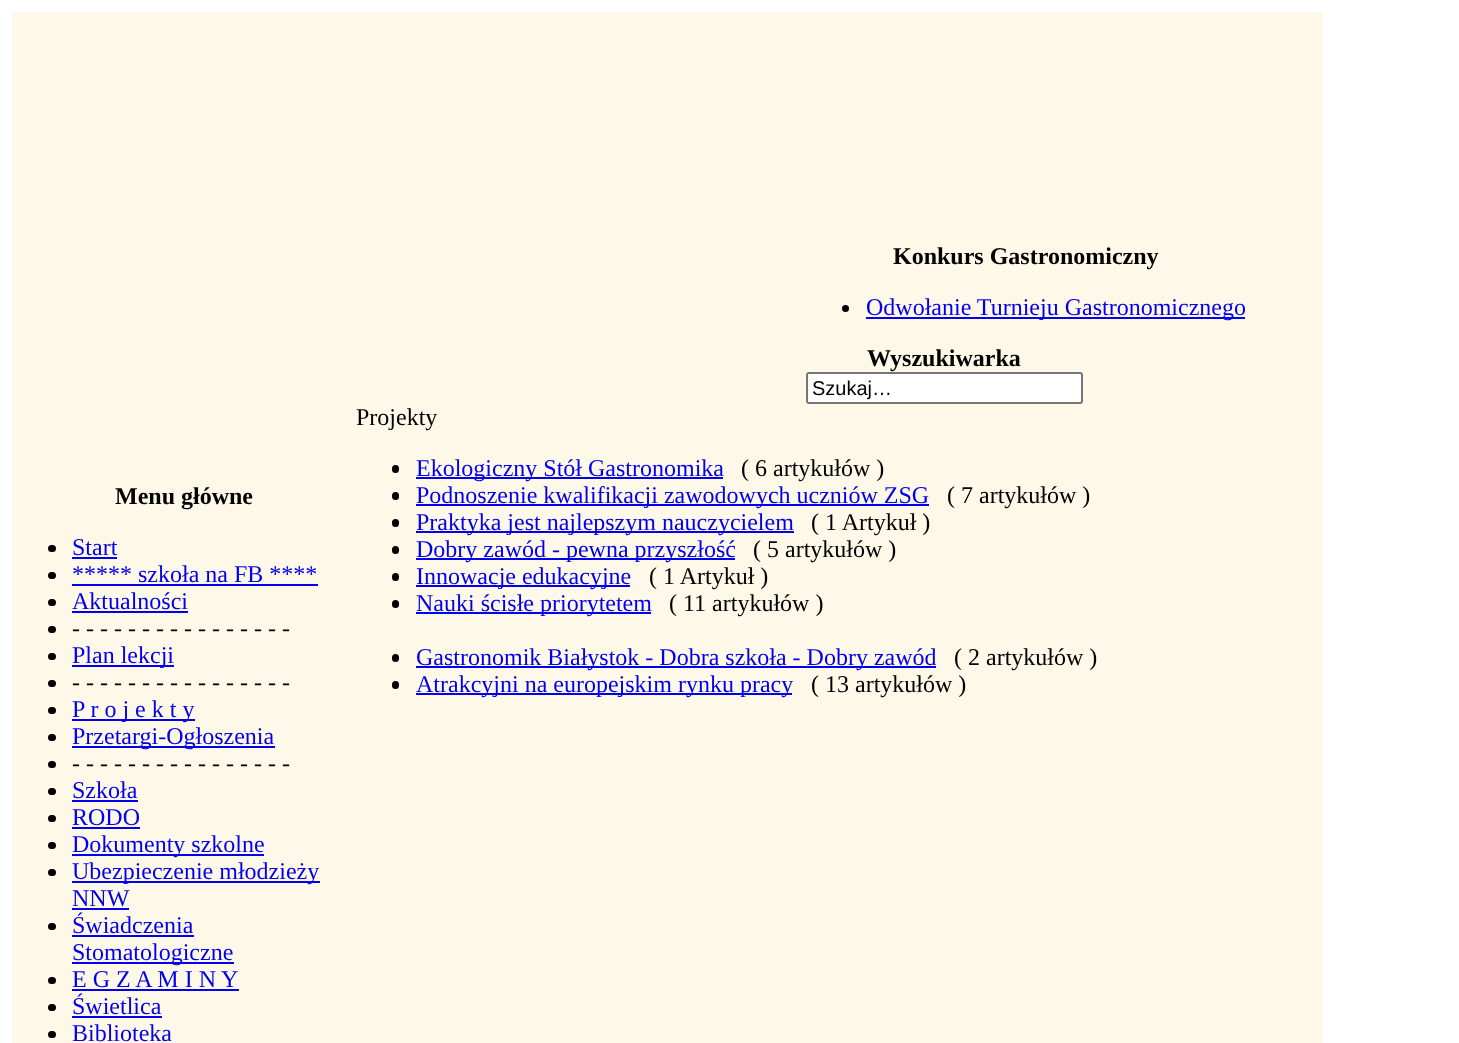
async function draw(canvas) {
  canvas.width = 1459;
  canvas.height = 1043;
  const ctx = canvas.getContext('2d');
  ctx.miterLimit = 4;
  ctx.fontKerning = 'normal';
  function label(s, x, y, font, color) {
    ctx.font = font;
    ctx.fillStyle = color;
    ctx.fillText(s, x, y);
  }
  function rect(x, y, w, h, color) {
    ctx.fillStyle = color;
    ctx.fillRect(x, y, w, h);
  }
  function roundedRect(x, y, w, h, r, color) {
    ctx.fillStyle = color;
    ctx.beginPath();
    ctx.roundRect(x, y, w, h, r);
    ctx.fill();
  }

  rect(0, 0, 1459, 1043, '#fff');
  rect(12, 12, 1311, 1031, '#fef8e8');
  label('Menu główne', 115, 504, 'bold 24px Liberation Serif', '#000');
  roundedRect(48, 545, 8, 7, 3.5, '#000');
  label('Start', 72, 555, '24px Liberation Serif', '#00e');
  rect(72, 557, 45, 2, '#00e');
  roundedRect(48, 572, 8, 7, 3.5, '#000');
  label('***** szkoła na FB ****', 72, 582, '24px Liberation Serif', '#00e');
  rect(72, 584, 246, 2, '#00e');
  roundedRect(48, 599, 8, 7, 3.5, '#000');
  label('Aktualności', 72, 609, '24px Liberation Serif', '#00e');
  rect(72, 611, 116, 2, '#00e');
  roundedRect(48, 626, 8, 7, 3.5, '#000');
  label('- - - - - - - - - - - - - - - -', 72, 636, '24px Liberation Serif', '#000');
  roundedRect(48, 653, 8, 7, 3.5, '#000');
  rect(72, 665, 102, 2, '#00e');
  label('Plan lekcji', 72, 663, '24px Liberation Serif', '#00e');
  roundedRect(48, 680, 8, 7, 3.5, '#000');
  label('- - - - - - - - - - - - - - - -', 72, 690, '24px Liberation Serif', '#000');
  roundedRect(48, 707, 8, 7, 3.5, '#000');
  rect(72, 719, 123, 2, '#00e');
  label('P r o j e k t y', 72, 717, '24px Liberation Serif', '#00e');
  roundedRect(48, 734, 8, 7, 3.5, '#000');
  rect(72, 746, 203, 2, '#00e');
  label('Przetargi-Ogłoszenia', 72, 744, '24px Liberation Serif', '#00e');
  roundedRect(48, 761, 8, 7, 3.5, '#000');
  label('- - - - - - - - - - - - - - - -', 72, 771, '24px Liberation Serif', '#000');
  roundedRect(48, 788, 8, 7, 3.5, '#000');
  label('Szkoła', 72, 798, '24px Liberation Serif', '#00e');
  rect(72, 800, 66, 2, '#00e');
  roundedRect(48, 815, 8, 7, 3.5, '#000');
  label('RODO', 72, 825, '24px Liberation Serif', '#00e');
  rect(72, 827, 68, 2, '#00e');
  roundedRect(48, 842, 8, 7, 3.5, '#000');
  rect(72, 854, 192, 2, '#00e');
  label('Dokumenty szkolne', 72, 852, '24px Liberation Serif', '#00e');
  roundedRect(48, 869, 8, 7, 3.5, '#000');
  rect(72, 881, 248, 2, '#00e');
  label('Ubezpieczenie młodzieży', 72, 879, '24px Liberation Serif', '#00e');
  label('NNW', 72, 906, '24px Liberation Serif', '#00e');
  rect(72, 908, 57, 2, '#00e');
  roundedRect(48, 923, 8, 7, 3.5, '#000');
  label('Świadczenia', 72, 933, '24px Liberation Serif', '#00e');
  rect(72, 935, 122, 2, '#00e');
  rect(72, 962, 162, 2, '#00e');
  label('Stomatologiczne', 72, 960, '24px Liberation Serif', '#00e');
  roundedRect(48, 977, 8, 7, 3.5, '#000');
  label('E G Z A M I N Y', 72, 987, '24px Liberation Serif', '#00e');
  rect(72, 989, 167, 2, '#00e');
  roundedRect(48, 1004, 8, 7, 3.5, '#000');
  label('Świetlica', 72, 1014, '24px Liberation Serif', '#00e');
  rect(72, 1016, 90, 2, '#00e');
  roundedRect(48, 1031, 8, 7, 3.5, '#000');
  label('Biblioteka', 72, 1041, '24px Liberation Serif', '#00e');
  label('Konkurs Gastronomiczny', 893, 264, 'bold 24px Liberation Serif', '#000');
  ctx.beginPath();
  ctx.arc(845.5, 308.5, 3.5, 0, 2 * Math.PI);
  ctx.fill();
  rect(866, 317, 379, 2, '#00e');
  label('Odwołanie Turnieju Gastronomicznego', 866, 315, '24px Liberation Serif', '#00e');
  label('Wyszukiwarka', 867, 366, 'bold 24px Liberation Serif', '#000');
  ctx.fillStyle = '#fff';
  ctx.beginPath();
  ctx.roundRect(807, 373, 275, 30, 2);
  ctx.fill();
  ctx.strokeStyle = '#767676';
  ctx.lineWidth = 2;
  ctx.stroke();
  label('Szukaj…', 812, 395, '20px Liberation Sans', '#000');
  label('Projekty', 356, 425, '24px Liberation Serif', '#000');
  roundedRect(392, 465, 7, 8, 3.5, '#000');
  rect(416, 477, 307, 2, '#00e');
  label('Ekologiczny Stół Gastronomika', 416, 476, '24px Liberation Serif', '#00e');
  label('( 6 artykułów )', 741, 476, '24px Liberation Serif', '#000');
  roundedRect(392, 492, 7, 8, 3.5, '#000');
  rect(416, 504, 513, 2, '#00e');
  label('Podnoszenie kwalifikacji zawodowych uczniów ZSG', 416, 503, '24px Liberation Serif', '#00e');
  label('( 7 artykułów )', 947, 503, '24px Liberation Serif', '#000');
  roundedRect(392, 519, 7, 8, 3.5, '#000');
  rect(416, 531, 378, 2, '#00e');
  label('Praktyka jest najlepszym nauczycielem', 416, 530, '24px Liberation Serif', '#00e');
  label('( 1 Artykuł )', 811, 530, '24px Liberation Serif', '#000');
  roundedRect(392, 546, 7, 8, 3.5, '#000');
  rect(416, 558, 319, 2, '#00e');
  label('Dobry zawód - pewna przyszłość', 416, 557, '24px Liberation Serif', '#00e');
  label('( 5 artykułów )', 753, 557, '24px Liberation Serif', '#000');
  roundedRect(392, 573, 7, 8, 3.5, '#000');
  rect(416, 585, 214, 2, '#00e');
  label('Innowacje edukacyjne', 416, 584, '24px Liberation Serif', '#00e');
  label('( 1 Artykuł )', 649, 584, '24px Liberation Serif', '#000');
  roundedRect(392, 600, 7, 8, 3.5, '#000');
  rect(416, 612, 235, 2, '#00e');
  label('Nauki ścisłe priorytetem', 416, 611, '24px Liberation Serif', '#00e');
  label('( 11 artykułów )', 669, 611, '24px Liberation Serif', '#000');
  roundedRect(392, 654, 7, 8, 3.5, '#000');
  rect(416, 666, 520, 2, '#00e');
  label('Gastronomik Białystok - Dobra szkoła - Dobry zawód', 416, 665, '24px Liberation Serif', '#00e');
  label('( 2 artykułów )', 954, 665, '24px Liberation Serif', '#000');
  roundedRect(392, 681, 7, 8, 3.5, '#000');
  rect(416, 693, 376, 2, '#00e');
  label('Atrakcyjni na europejskim rynku pracy', 416, 692, '24px Liberation Serif', '#00e');
  label('( 13 artykułów )', 811, 692, '24px Liberation Serif', '#000');
}

draw(document.querySelector('canvas'));
